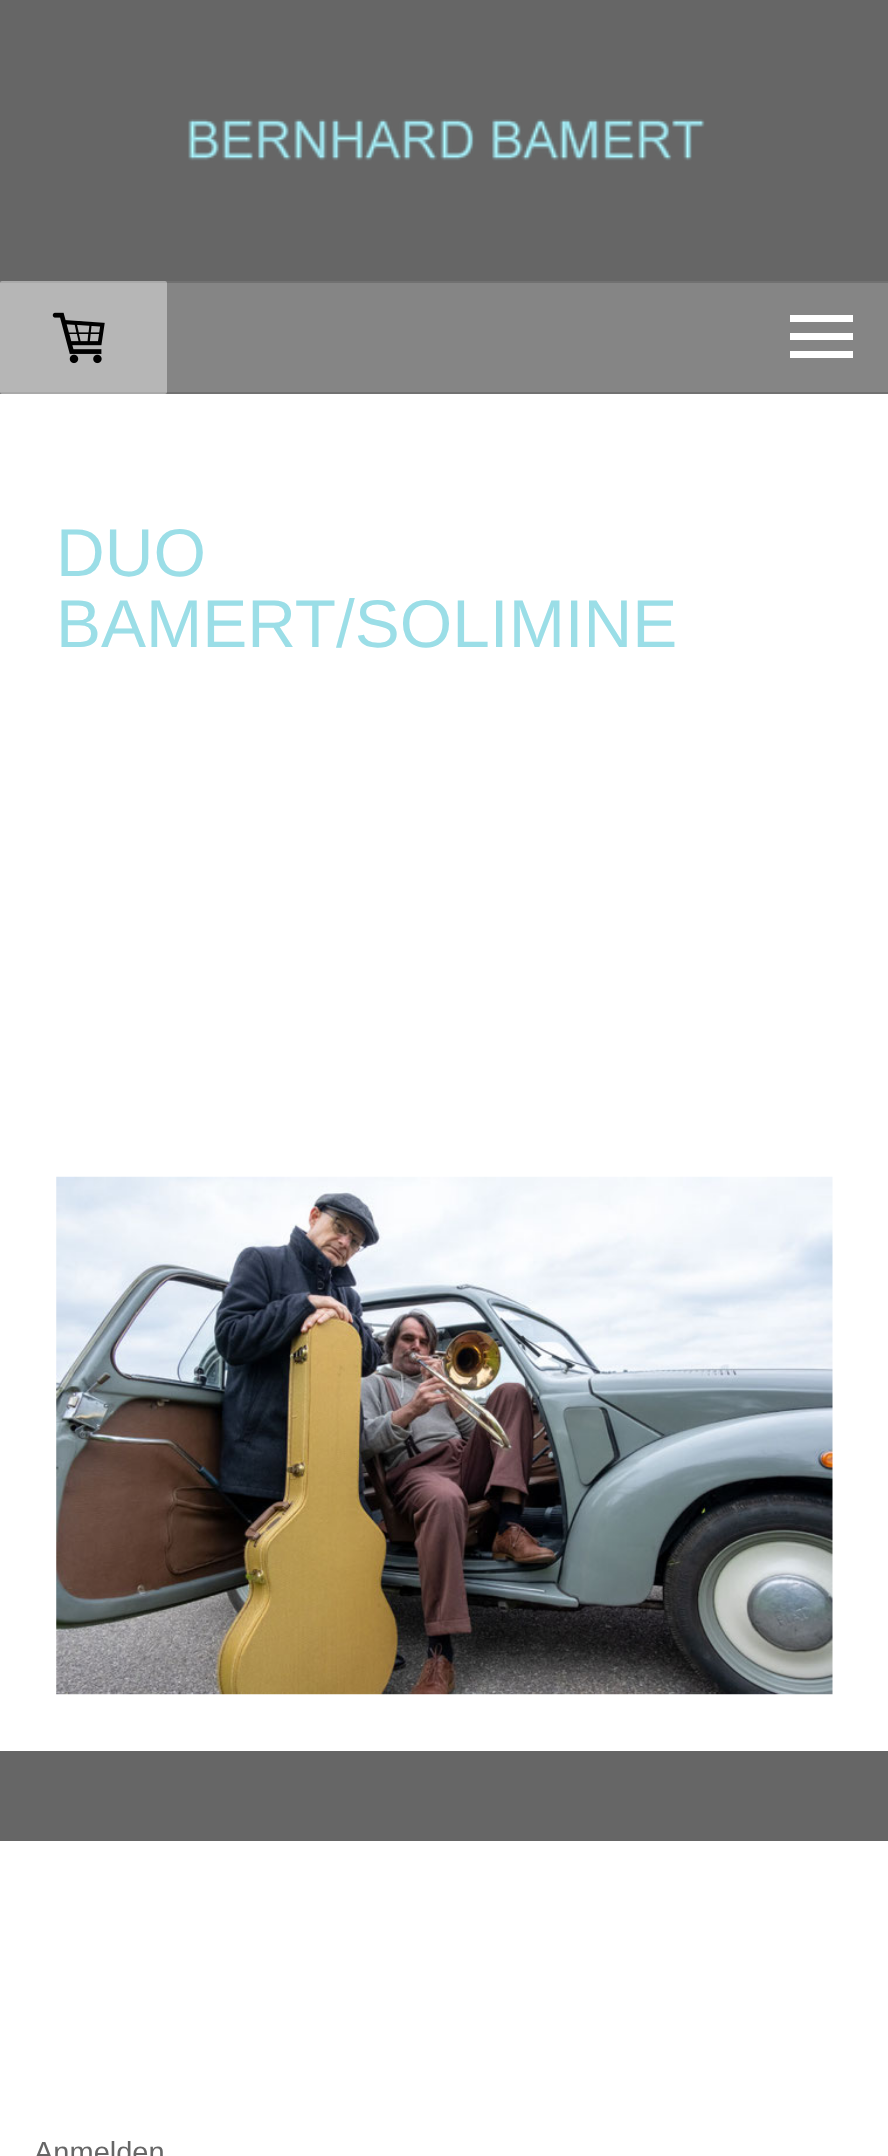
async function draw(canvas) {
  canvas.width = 888;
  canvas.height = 2156;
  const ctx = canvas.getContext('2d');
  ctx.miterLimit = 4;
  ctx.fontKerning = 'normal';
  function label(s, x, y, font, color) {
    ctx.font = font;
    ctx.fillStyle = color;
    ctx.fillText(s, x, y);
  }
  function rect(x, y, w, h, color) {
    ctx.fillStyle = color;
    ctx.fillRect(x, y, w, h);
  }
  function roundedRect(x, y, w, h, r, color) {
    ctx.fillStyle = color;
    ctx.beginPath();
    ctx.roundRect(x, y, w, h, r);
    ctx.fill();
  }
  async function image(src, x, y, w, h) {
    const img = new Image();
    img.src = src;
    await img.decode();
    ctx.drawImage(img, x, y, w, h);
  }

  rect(0, 0, 888, 2156, '#fff');
  rect(0, 0, 888, 281, '#666');
  await image('assets/img1.png', 188, 119, 517, 42);
  rect(0, 283, 888, 109, '#858585');
  rect(0, 281, 888, 2, '#717171');
  rect(0, 392, 888, 2, '#717171');
  roundedRect(0, 281, 167, 113, 2, '#ffffff66');
  await image('assets/img2.png', 52, 312, 53, 52);
  rect(790, 333, 63, 7, '#fff');
  rect(790, 315, 63, 7, '#fff');
  rect(790, 351, 63, 7, '#fff');
  label('DUO', 56, 576, '67.5px Liberation Sans', '#9bdee7');
  label('BAMERT/SOLIMINE', 56, 647, '67.5px Liberation Sans', '#9bdee7');
  await image('assets/img3.png', 56, 1176, 777, 519);
  rect(0, 1751, 888, 90, '#666');
  label('Anmelden', 34, 2162, '29px Liberation Sans', '#666');
}

draw(document.querySelector('canvas'));
